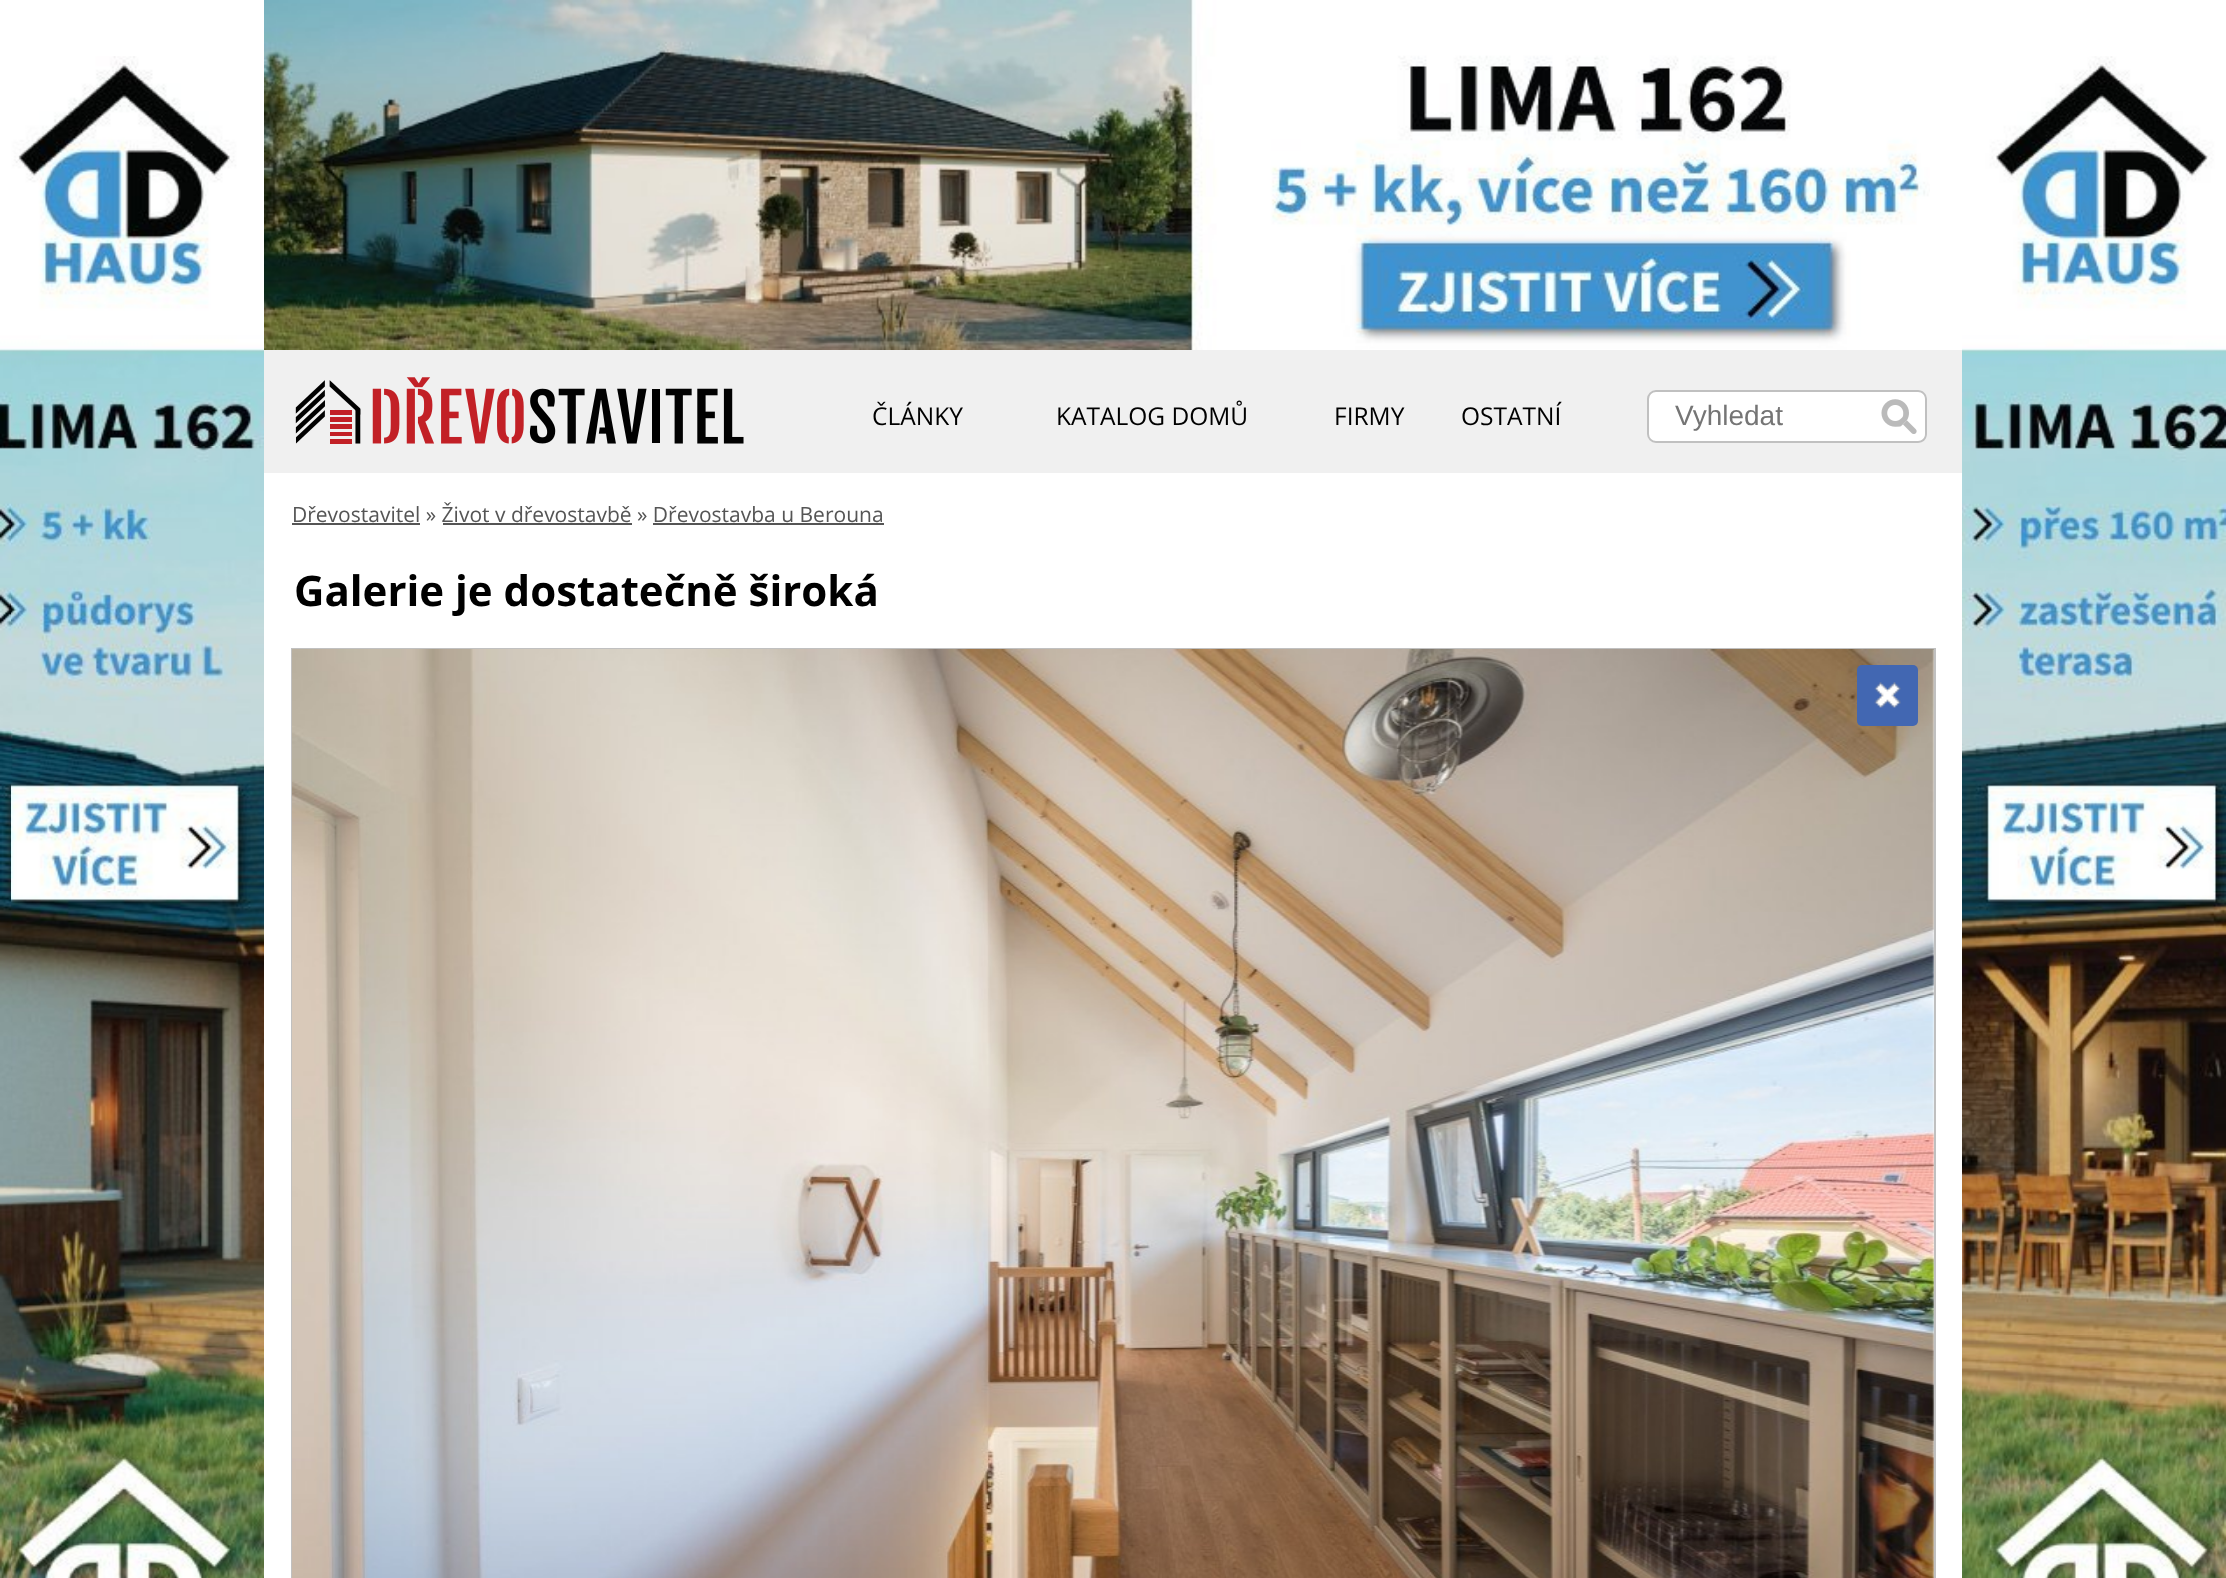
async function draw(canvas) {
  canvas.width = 2226;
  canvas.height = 1578;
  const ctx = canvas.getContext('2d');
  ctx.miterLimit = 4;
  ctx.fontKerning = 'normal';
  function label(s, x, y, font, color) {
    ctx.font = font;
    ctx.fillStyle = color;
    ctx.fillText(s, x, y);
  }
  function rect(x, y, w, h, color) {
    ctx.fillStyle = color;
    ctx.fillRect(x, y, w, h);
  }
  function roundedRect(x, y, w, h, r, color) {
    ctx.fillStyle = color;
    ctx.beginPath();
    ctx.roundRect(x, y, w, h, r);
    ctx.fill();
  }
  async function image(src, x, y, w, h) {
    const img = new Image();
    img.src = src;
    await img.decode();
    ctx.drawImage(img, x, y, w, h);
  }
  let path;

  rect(0, 0, 2226, 1578, '#fff');
  await image('assets/img1.png', 264, 0, 1666, 350);
  await image('assets/img2.png', 0, 56, 264, 1522);
  rect(264, 350, 1698, 123, '#f0f0f0');
  await image('assets/img3.png', 295, 377, 449, 67);
  label('ČLÁNKY', 872, 425, '24.5px Open Sans', '#000');
  label('KATALOG DOMŮ', 1056, 425, '24.5px Open Sans', '#000');
  label('FIRMY', 1334, 425, '24.5px Open Sans', '#000');
  label('OSTATNÍ', 1461, 425, '24.5px Open Sans', '#000');
  ctx.fillStyle = '#fff';
  ctx.beginPath();
  ctx.roundRect(1648, 391, 231, 51, [8, 0, 0, 8]);
  ctx.fill();
  ctx.strokeStyle = '#c0c0c0';
  ctx.lineWidth = 2;
  ctx.stroke();
  label('Vyhledat', 1675, 425, '28px Liberation Sans', '#757575');
  ctx.fillStyle = '#fff';
  ctx.beginPath();
  ctx.roundRect(1874, 390, 53, 53, [0, 9, 9, 0]);
  ctx.fill();
  await image('assets/img4.png', 1881, 399, 36, 35);
  ctx.fillStyle = '#c0c0c0';
  path = new Path2D('M1874 390H1918C1923 390 1927 394 1927 399V434C1927 439 1923 443 1918 443H1874ZM1874 392H1918C1922 392 1925 395 1925 399V434C1925 438 1922 441 1918 441H1874Z');
  ctx.fill(path, 'evenodd');
  await image('assets/img5.png', 1962, 56, 264, 1522);
  label('Dřevostavitel » Život v dřevostavbě » Dřevostavba u Berouna', 292, 522, '21px Open Sans', '#555');
  rect(292, 523, 128, 2, '#555');
  rect(443, 523, 189, 2, '#555');
  rect(653, 523, 231, 2, '#555');
  label('Galerie je dostatečně široká', 294, 606, 'bold 42px Open Sans', '#000');
  ctx.strokeRect(292, 649, 1643, 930);
  await image('assets/img6.png', 292, 649, 1642, 929);
  roundedRect(1857, 665, 61, 61, 5, '#4267b2');
  await image('assets/img7.png', 1874, 682, 27, 26);
}

draw(document.querySelector('canvas'));
